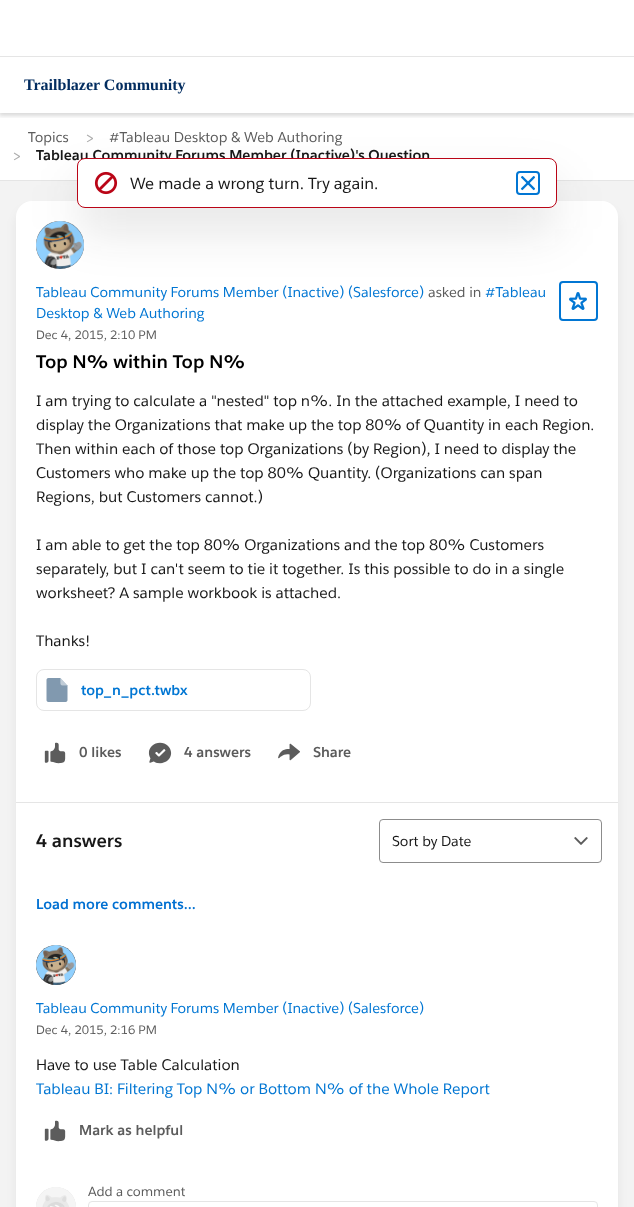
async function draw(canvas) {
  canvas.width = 634;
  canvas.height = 1207;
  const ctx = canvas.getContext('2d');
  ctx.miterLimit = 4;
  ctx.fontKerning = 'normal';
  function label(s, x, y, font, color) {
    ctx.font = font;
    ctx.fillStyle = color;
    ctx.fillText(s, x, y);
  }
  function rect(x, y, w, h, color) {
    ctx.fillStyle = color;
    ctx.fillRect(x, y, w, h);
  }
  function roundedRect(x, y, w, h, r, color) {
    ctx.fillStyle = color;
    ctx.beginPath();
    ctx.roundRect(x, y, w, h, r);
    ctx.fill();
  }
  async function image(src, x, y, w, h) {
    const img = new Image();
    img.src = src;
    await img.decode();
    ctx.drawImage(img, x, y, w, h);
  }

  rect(0, 0, 634, 1207, '#fff');
  ctx.save();
  ctx.beginPath();
  ctx.rect(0, 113, 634, 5);
  ctx.clip();
  ctx.fillStyle = '#18181829';
  ctx.filter = 'blur(2px)';
  ctx.beginPath();
  ctx.rect(-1, 57, 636, 59);
  ctx.fill();
  ctx.filter = 'none';
  ctx.restore();
  rect(0, 54, 634, 2, '#fff');
  rect(0, 56, 634, 1, '#e5e5e5');
  label('Trailblazer Community', 24, 90, 'bold 16px Liberation Serif', '#032d60');
  rect(0, 181, 634, 1026, '#f3f3f3');
  rect(0, 180, 634, 1, '#e5e5e5');
  label('Topics', 28, 142, '14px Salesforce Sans', '#5c5c5c');
  label('>', 85, 143, '16px Salesforce Sans', '#aeaeae');
  label('#Tableau Desktop & Web Authoring', 109, 142, '14px Salesforce Sans', '#5c5c5c');
  label('>', 12, 161, '16px Salesforce Sans', '#aeaeae');
  label('Tableau Community Forums Member (Inactive)\'s Question', 36, 160, 'bold 14px Salesforce Sans', '#181818');
  ctx.fillStyle = '#18181817';
  ctx.filter = 'blur(6px)';
  ctx.beginPath();
  ctx.roundRect(18, 211, 598, 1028, 14);
  ctx.fill();
  ctx.filter = 'none';
  roundedRect(16, 201, 602, 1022, 16, '#fff');
  await image('assets/img1.png', 36, 221, 48, 48);
  label('Tableau Community Forums Member (Inactive) (Salesforce)', 36, 297, '14px Salesforce Sans', '#0176d3');
  label('asked in', 428, 297, '14px Salesforce Sans', '#5c5c5c');
  label('#Tableau', 485, 297, '14px Salesforce Sans', '#0176d3');
  label('Desktop & Web Authoring', 36, 318, '14px Salesforce Sans', '#0176d3');
  ctx.beginPath();
  ctx.roundRect(560, 282, 37, 38, 3);
  ctx.strokeStyle = '#0176d3';
  ctx.lineWidth = 2;
  ctx.stroke();
  await image('assets/img2.png', 569, 292, 18, 18);
  label('Dec 4, 2015, 2:10 PM', 36, 339, '12px Salesforce Sans', '#5c5c5c');
  label('Top N% within Top N%', 36, 368, 'bold 18px Salesforce Sans', '#000');
  label('I am trying to calculate a "nested" top n%. In the attached example, I need to', 36, 406, '15px Salesforce Sans', '#181818');
  label('display the Organizations that make up the top 80% of Quantity in each Region.', 36, 430, '15px Salesforce Sans', '#181818');
  label('Then within each of those top Organizations (by Region), I need to display the', 36, 454, '15px Salesforce Sans', '#181818');
  label('Customers who make up the top 80% Quantity. (Organizations can span', 36, 478, '15px Salesforce Sans', '#181818');
  label('Regions, but Customers cannot.)', 36, 502, '15px Salesforce Sans', '#181818');
  label('I am able to get the top 80% Organizations and the top 80% Customers', 36, 550, '15px Salesforce Sans', '#181818');
  label('separately, but I can\'t seem to tie it together. Is this possible to do in a single', 36, 574, '15px Salesforce Sans', '#181818');
  label('worksheet? A sample workbook is attached.', 36, 598, '15px Salesforce Sans', '#181818');
  label('Thanks!', 36, 646, '15px Salesforce Sans', '#181818');
  ctx.beginPath();
  ctx.roundRect(36.5, 669.5, 274, 41, 7.5);
  ctx.strokeStyle = '#e5e5e5';
  ctx.lineWidth = 1;
  ctx.stroke();
  await image('assets/img3.png', 46, 678, 22, 24);
  label('top_n_pct.twbx', 81, 695, 'bold 14px Salesforce Sans', '#0176d3');
  await image('assets/img4.png', 44, 742, 22, 22);
  label('0 likes', 79, 757, 'bold 14px Salesforce Sans', '#5c5c5c');
  await image('assets/img5.png', 148, 742, 24, 22);
  label('4 answers', 184, 757, 'bold 14px Salesforce Sans', '#5c5c5c');
  await image('assets/img6.png', 278, 743, 22, 18);
  label('Share', 313, 757, 'bold 14px Salesforce Sans', '#5c5c5c');
  rect(16, 802, 602, 1, '#e5e5e5');
  label('4 answers', 36, 847, 'bold 18px Salesforce Sans', '#181818');
  ctx.beginPath();
  ctx.roundRect(379.5, 819.5, 222, 43, 3.5);
  ctx.strokeStyle = '#8c8c8c';
  ctx.stroke();
  label('Sort by Date', 392, 846, '14px Salesforce Sans', '#181818');
  await image('assets/img7.png', 574, 837, 14, 8);
  label('Load more comments...', 36, 909, 'bold 14px Salesforce Sans', '#0070d2');
  ctx.fillStyle = '#e5e5e5';
  ctx.beginPath();
  ctx.arc(56, 965, 20, 0, 2 * Math.PI);
  ctx.fill();
  await image('assets/img8.png', 36, 945, 40, 40);
  label('Tableau Community Forums Member (Inactive) (Salesforce)', 36, 1013, '14px Salesforce Sans', '#0176d3');
  label('Dec 4, 2015, 2:16 PM', 36, 1034, '12px Salesforce Sans', '#5c5c5c');
  label('Have to use Table Calculation', 36, 1070, '15px Salesforce Sans', '#181818');
  label('Tableau BI: Filtering Top N% or Bottom N% of the Whole Report', 36, 1094, '15px Salesforce Sans', '#0176d3');
  await image('assets/img9.png', 44, 1120, 22, 22);
  label('Mark as helpful', 79, 1135, 'bold 14px Salesforce Sans', '#5c5c5c');
  ctx.fillStyle = '#e5e5e5';
  ctx.beginPath();
  ctx.arc(56, 1207, 20, 0, 2 * Math.PI);
  ctx.fill();
  await image('assets/img10.png', 36, 1187, 40, 20);
  label('Add a comment', 88, 1196, '13px Salesforce Sans', '#5c5c5c');
  ctx.beginPath();
  ctx.roundRect(88.5, 1201.5, 509, 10, 3.5);
  ctx.strokeStyle = '#e5e5e5';
  ctx.stroke();
  ctx.fillStyle = '#1818181f';
  ctx.filter = 'blur(24px)';
  ctx.beginPath();
  ctx.roundRect(79, 184, 476, 46, 6);
  ctx.fill();
  ctx.filter = 'none';
  ctx.fillStyle = '#fff';
  ctx.beginPath();
  ctx.roundRect(77.5, 158.5, 479, 49, 7.5);
  ctx.fill();
  ctx.strokeStyle = '#ba0517';
  ctx.stroke();
  await image('assets/img11.png', 94, 171, 24, 24);
  label('We made a wrong turn. Try again.', 130, 189, '16px Salesforce Sans', '#181818');
  ctx.beginPath();
  ctx.roundRect(517, 172, 22, 22, 3);
  ctx.strokeStyle = '#0176d3';
  ctx.lineWidth = 2;
  ctx.stroke();
  await image('assets/img12.png', 520, 176, 15, 15);
}

draw(document.querySelector('canvas'));
